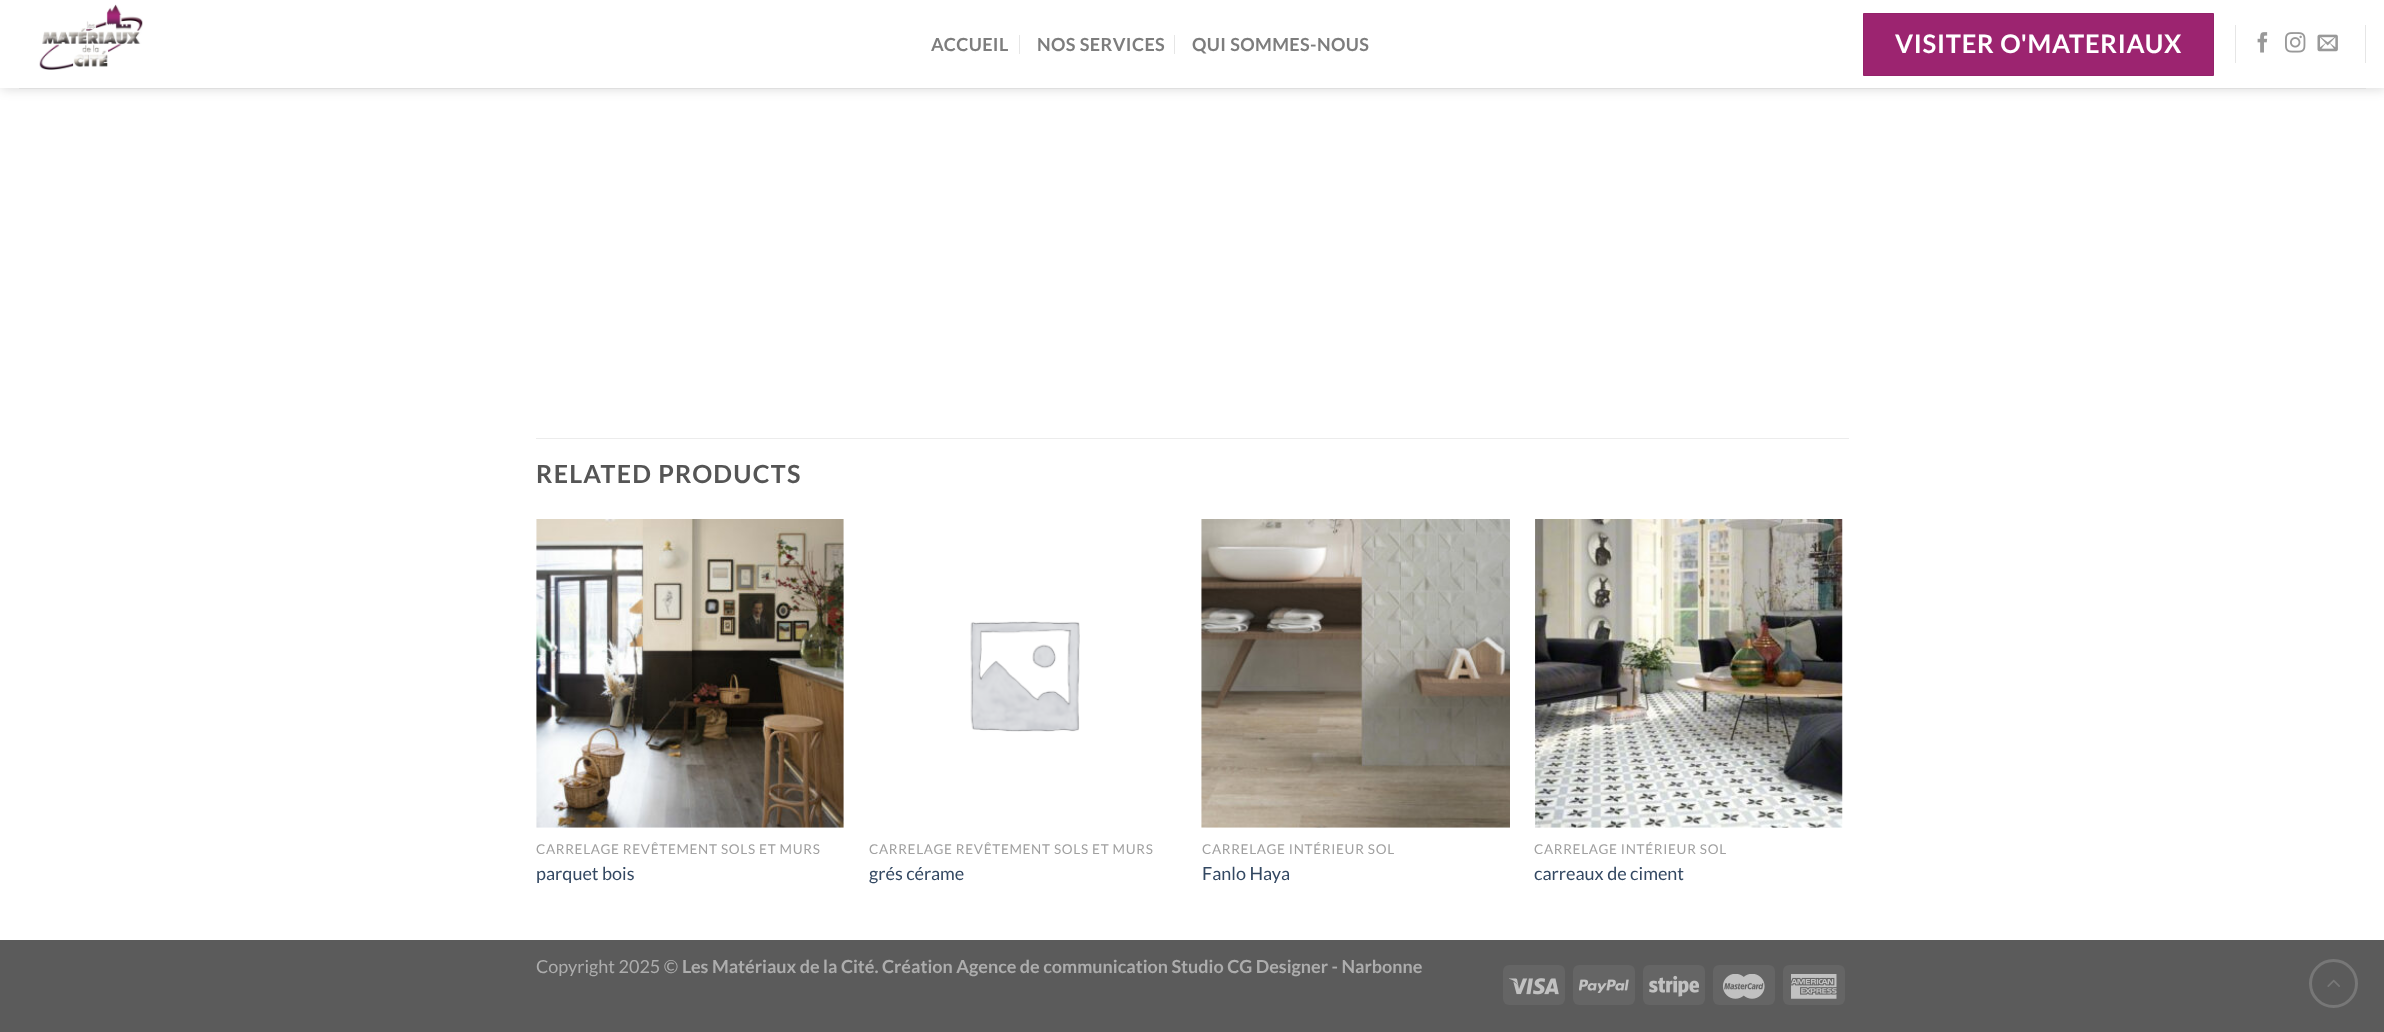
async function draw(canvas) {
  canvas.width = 2384;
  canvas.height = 1032;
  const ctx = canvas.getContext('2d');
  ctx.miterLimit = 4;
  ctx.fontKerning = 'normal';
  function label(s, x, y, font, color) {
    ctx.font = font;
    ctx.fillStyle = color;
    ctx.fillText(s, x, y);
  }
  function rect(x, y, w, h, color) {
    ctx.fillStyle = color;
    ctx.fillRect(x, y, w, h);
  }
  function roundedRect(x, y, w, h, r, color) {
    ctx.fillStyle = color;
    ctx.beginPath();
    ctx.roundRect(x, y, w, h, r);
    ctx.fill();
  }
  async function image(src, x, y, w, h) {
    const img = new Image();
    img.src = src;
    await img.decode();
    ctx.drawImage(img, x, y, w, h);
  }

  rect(0, 0, 2384, 1032, '#fff');
  ctx.fillStyle = '#00000026';
  ctx.filter = 'blur(6px)';
  ctx.beginPath();
  ctx.rect(1, 1, 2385, 88);
  ctx.fill();
  ctx.filter = 'none';
  rect(0, 0, 2384, 88, '#fff');
  await image('assets/img1.png', 39, 4, 104, 66);
  ctx.letterSpacing = '0.4px';
  label('ACCUEIL', 931, 51, 'bold 18px Lato', '#7d7d7d');
  rect(1019, 35, 1, 19, '#e6e6e6');
  label('NOS SERVICES', 1037, 51, 'bold 18px Lato', '#7d7d7d');
  rect(1174, 35, 1, 19, '#e6e6e6');
  label('QUI SOMMES-NOUS', 1192, 51, 'bold 18px Lato', '#7d7d7d');
  ctx.fillStyle = '#9c2470';
  ctx.beginPath();
  ctx.rect(1863.5, 13.5, 350, 62);
  ctx.fill();
  ctx.strokeStyle = '#94226a';
  ctx.stroke();
  ctx.letterSpacing = '0.75px';
  label('VISITER O\'MATERIAUX', 1895, 53, 'bold 25.5px Lato', '#fff');
  rect(2235, 25, 1, 38, '#e6e6e6');
  await image('assets/img2.png', 2257, 32, 11, 21);
  await image('assets/img3.png', 2285, 32, 21, 21);
  await image('assets/img4.png', 2317, 34, 21, 18);
  rect(2365, 25, 1, 38, '#e6e6e6');
  rect(19, 88, 2347, 1, '#dfdfdf');
  rect(536, 438, 1313, 1, '#ececec');
  ctx.letterSpacing = '1.25px';
  label('RELATED PRODUCTS', 536, 483, 'bold 25px Lato', '#555');
  await image('assets/img5.png', 536, 519, 308, 309);
  ctx.letterSpacing = '0.7px';
  label('CARRELAGE REVÊTEMENT SOLS ET MURS', 536, 854, '13.5px Lato', '#a0a0a0');
  ctx.letterSpacing = '0px';
  label('parquet bois', 536, 880, '18px Lato', '#334862');
  await image('assets/img6.png', 970, 621, 110, 111);
  ctx.letterSpacing = '0.7px';
  label('CARRELAGE REVÊTEMENT SOLS ET MURS', 869, 854, '13.5px Lato', '#a0a0a0');
  ctx.letterSpacing = '0px';
  label('grés cérame', 869, 880, '18px Lato', '#334862');
  await image('assets/img7.png', 1201, 519, 309, 309);
  ctx.letterSpacing = '0.7px';
  label('CARRELAGE INTÉRIEUR SOL', 1202, 854, '13.5px Lato', '#a0a0a0');
  ctx.letterSpacing = '0px';
  label('Fanlo Haya', 1202, 880, '18px Lato', '#334862');
  await image('assets/img8.png', 1535, 519, 308, 309);
  ctx.letterSpacing = '0.7px';
  label('CARRELAGE INTÉRIEUR SOL', 1534, 854, '13.5px Lato', '#a0a0a0');
  ctx.letterSpacing = '0px';
  label('carreaux de ciment', 1534, 880, '18px Lato', '#334862');
  rect(0, 940, 2384, 92, '#5b5b5b');
  label('Copyright 2025 ©', 536, 973, '18px Lato', '#adadad');
  label('Les Matériaux de la Cité. Création Agence de communication Studio CG Designer - Narbonne', 682, 973, 'bold 18px Lato', '#adadad');
  roundedRect(1503, 965, 62, 40, 6, '#656565');
  await image('assets/img9.png', 1509, 978, 50, 17);
  roundedRect(1573, 965, 62, 40, 6, '#656565');
  await image('assets/img10.png', 1579, 979, 50, 14);
  roundedRect(1643, 965, 62, 40, 6, '#656565');
  await image('assets/img11.png', 1649, 975, 50, 22);
  roundedRect(1713, 965, 62, 40, 6, '#656565');
  await image('assets/img12.png', 1722, 974, 43, 25);
  roundedRect(1783, 965, 62, 40, 6, '#656565');
  await image('assets/img13.png', 1791, 974, 46, 25);
  ctx.beginPath();
  ctx.arc(2333.5, 983.5, 23, 0, 2 * Math.PI);
  ctx.strokeStyle = '#777';
  ctx.lineWidth = 3;
  ctx.stroke();
  await image('assets/img14.png', 2327, 979, 13, 8);
}

draw(document.querySelector('canvas'));
